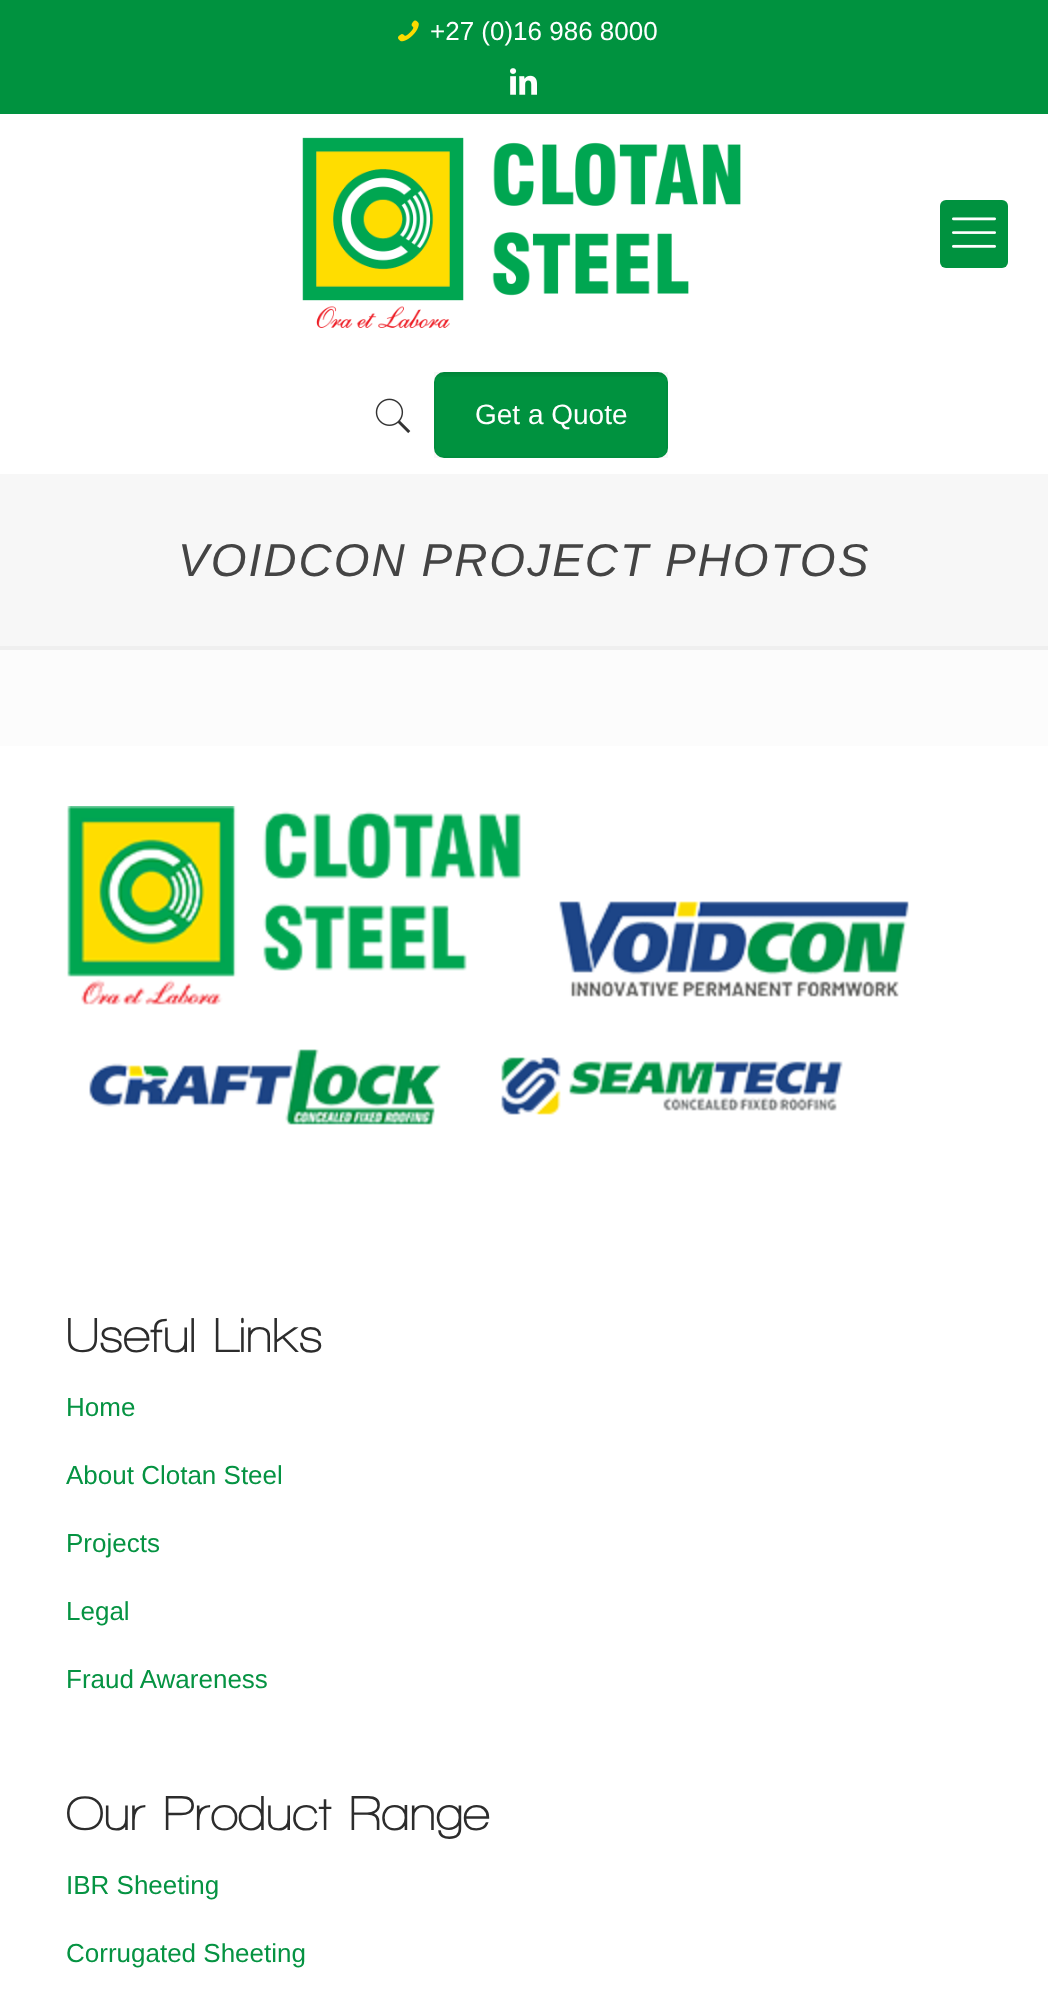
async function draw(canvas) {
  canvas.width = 1048;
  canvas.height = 1994;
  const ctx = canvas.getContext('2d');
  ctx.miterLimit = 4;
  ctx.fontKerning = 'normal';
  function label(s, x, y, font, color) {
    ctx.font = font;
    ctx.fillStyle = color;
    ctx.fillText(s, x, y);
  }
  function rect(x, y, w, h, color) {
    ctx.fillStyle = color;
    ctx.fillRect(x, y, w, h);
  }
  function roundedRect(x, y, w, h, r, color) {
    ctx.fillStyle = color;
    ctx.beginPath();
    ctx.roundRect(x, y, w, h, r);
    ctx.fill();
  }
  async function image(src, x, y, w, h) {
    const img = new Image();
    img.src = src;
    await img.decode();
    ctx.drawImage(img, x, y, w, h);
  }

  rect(0, 0, 1048, 1994, '#fcfcfc');
  rect(0, 0, 1048, 114, '#00923f');
  await image('assets/img1.png', 398, 20, 21, 22);
  label('+27 (0)16 986 8000', 430, 40, '26px Liberation Sans', '#fff');
  await image('assets/img2.png', 510, 68, 27, 27);
  rect(0, 114, 1048, 360, '#fff');
  await image('assets/img3.png', 302, 137, 439, 191);
  roundedRect(940, 200, 68, 68, 6, '#00923f');
  await image('assets/img4.png', 952, 217, 44, 31);
  await image('assets/img5.png', 375, 398, 36, 36);
  roundedRect(434, 372, 234, 86, 10, '#00923f');
  await image('assets/img6.png', 436, 372, 230, 5);
  ctx.strokeStyle = '#00000008';
  ctx.lineWidth = 2;
  ctx.strokeRect(435, 373, 232, 84);
  label('Get a Quote', 475, 424, '28px Liberation Sans', '#fff');
  rect(0, 474, 1048, 172, '#f7f7f7');
  ctx.letterSpacing = '2px';
  label('VOIDCON PROJECT PHOTOS', 178, 576, 'italic 46px Liberation Sans', '#444');
  rect(0, 646, 1048, 4, '#efefef');
  rect(0, 746, 1048, 1248, '#fff');
  await image('assets/img7.png', 67, 806, 454, 199);
  await image('assets/img8.png', 559, 901, 350, 96);
  await image('assets/img9.png', 89, 1049, 352, 76);
  await image('assets/img10.png', 501, 1057, 342, 58);
  ctx.letterSpacing = '0px';
  label('Useful Links', 66, 1352, 'bold 50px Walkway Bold', '#2c2c2c');
  label('Home', 66, 1416, '26px Liberation Sans', '#059342');
  label('About Clotan Steel', 66, 1484, '26px Liberation Sans', '#059342');
  label('Projects', 66, 1552, '26px Liberation Sans', '#059342');
  label('Legal', 66, 1620, '26px Liberation Sans', '#059342');
  label('Fraud Awareness', 66, 1688, '26px Liberation Sans', '#059342');
  label('Our Product Range', 66, 1830, 'bold 50px Walkway Bold', '#2c2c2c');
  label('IBR Sheeting', 66, 1894, '26px Liberation Sans', '#059342');
  label('Corrugated Sheeting', 66, 1962, '26px Liberation Sans', '#059342');
}

draw(document.querySelector('canvas'));
